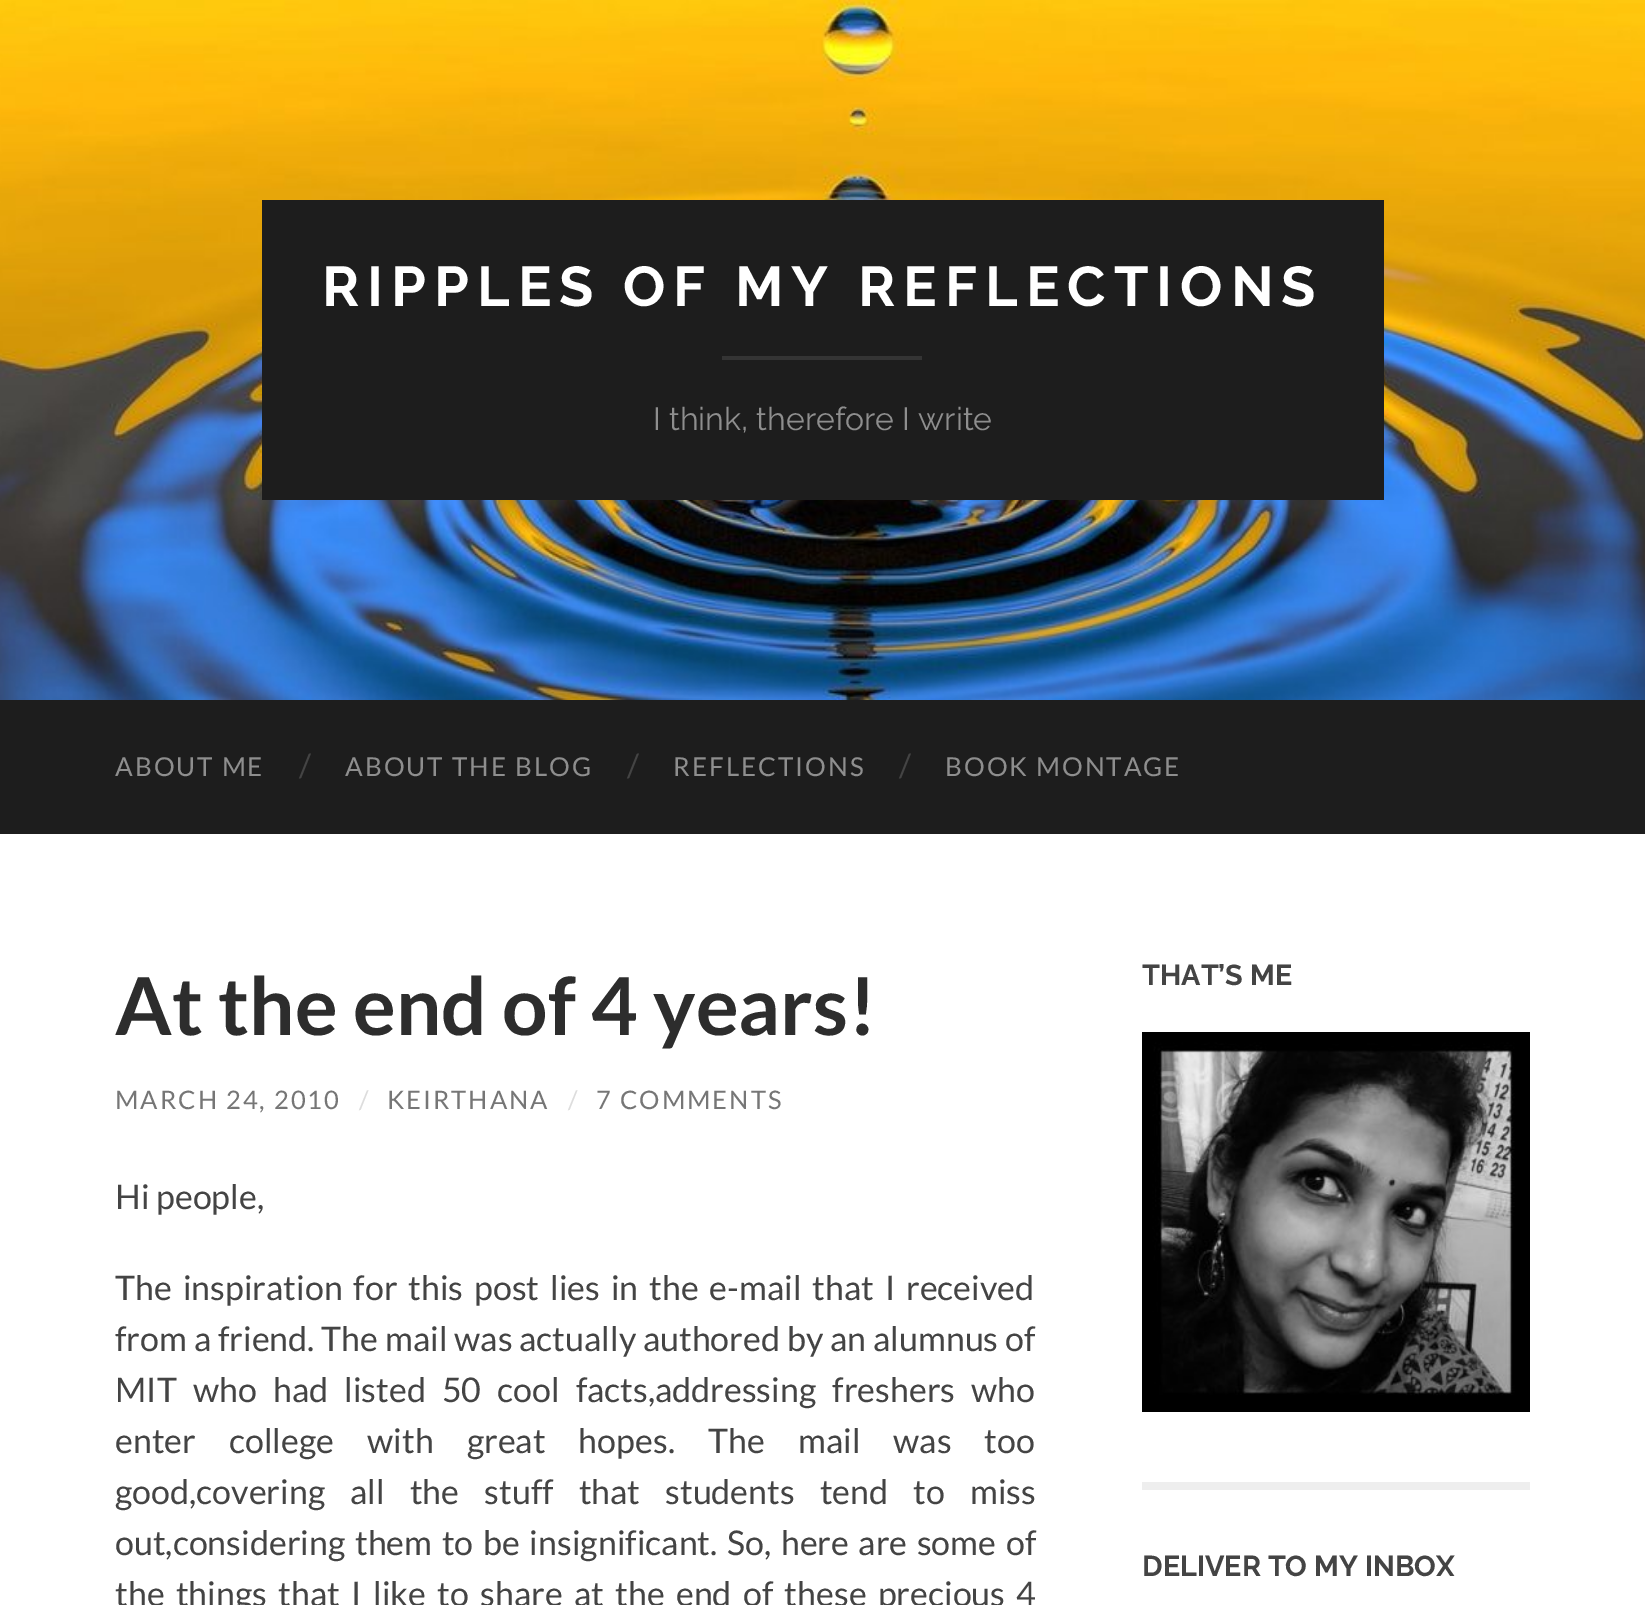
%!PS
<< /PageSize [1645 1605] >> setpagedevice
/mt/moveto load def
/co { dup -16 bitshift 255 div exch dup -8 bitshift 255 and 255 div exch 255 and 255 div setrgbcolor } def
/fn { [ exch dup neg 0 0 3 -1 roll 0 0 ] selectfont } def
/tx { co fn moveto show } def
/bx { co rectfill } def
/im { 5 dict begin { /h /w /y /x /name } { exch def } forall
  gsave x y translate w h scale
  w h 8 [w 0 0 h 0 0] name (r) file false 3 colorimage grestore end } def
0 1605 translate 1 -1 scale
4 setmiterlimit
0 0 1645 1605 16#FFFFFF bx
(media/1.raw) 0 0 1645 700 im
262 200 1122 300 16#1D1D1D bx
722 356 200 4 16#343434 bx
0 700 1645 134 16#1D1D1D bx
1142 1482 388 8 16#EEEEEE bx
(media/2.raw) 1142 1032 388 380 im
/Raleway-Thin 56 fn
16#FFFFFF co
322 306 mt 8 0 (RIPPLES OF MY REFLECTIONS) ashow
(I think, therefore I write) 653 430 /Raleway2-Thin 32 16#8E8E8E tx
/Lato-Regular 26 fn
115 776 mt 2 0 (ABOUT ME) ashow
(/) 299 777 /Lato-Regular 32 16#444444 tx
/Lato-Regular 26 fn
16#8E8E8E co
345 776 mt 2 0 (ABOUT THE BLOG) ashow
(/) 627 777 /Lato-Regular 32 16#444444 tx
/Lato-Regular 26 fn
16#8E8E8E co
673 776 mt 2 0 (REFLECTIONS) ashow
(/) 899 777 /Lato-Regular 32 16#444444 tx
/Lato-Regular 26 fn
16#8E8E8E co
945 776 mt 2 0 (BOOK MONTAGE) ashow
(At the end of 4 years!) 115 1035 /Lato-Bold 80 16#2D2D2D tx
/Lato-Regular 25.5 fn
16#767676 co
115 1109 mt 2 0 (MARCH 24, 2010) ashow
16#DDDDDD co
359 1109 mt 2 0 (/) ashow
16#767676 co
387 1109 mt 2 0 (KEIRTHANA) ashow
16#DDDDDD co
568 1109 mt 2 0 (/) ashow
16#767676 co
596 1109 mt 2 0 (7 COMMENTS) ashow
(Hi people,) 115 1209 /Lato-Regular 34 16#444444 tx
115 1300 mt 4.25 0 32 (The inspiration for this post lies in the e-mail that I received) widthshow
115 1351 mt .25 0 32 (from a friend. The mail was actually authored by an alumnus of) widthshow
115 1402 mt 9.5 0 32 (MIT who had listed 50 cool facts,addressing freshers who) widthshow
115 1453 mt 26.5 0 32 (enter college with great hopes. The mail was too) widthshow
115 1504 mt 18.5 0 32 (good,covering all the stuff that students tend to miss) widthshow
115 1555 mt 3 0 32 (out,considering them to be insignificant. So, here are some of) widthshow
115 1606 mt 4.75 0 32 (the things that I like to share at the end of these precious 4) widthshow
(THAT’S ME) 1142 985 /Raleway-Thin 28.75 16#444444 tx
(DELIVER TO MY INBOX) 1142 1576 /Raleway-Thin 28.75 16#444444 tx
showpage
